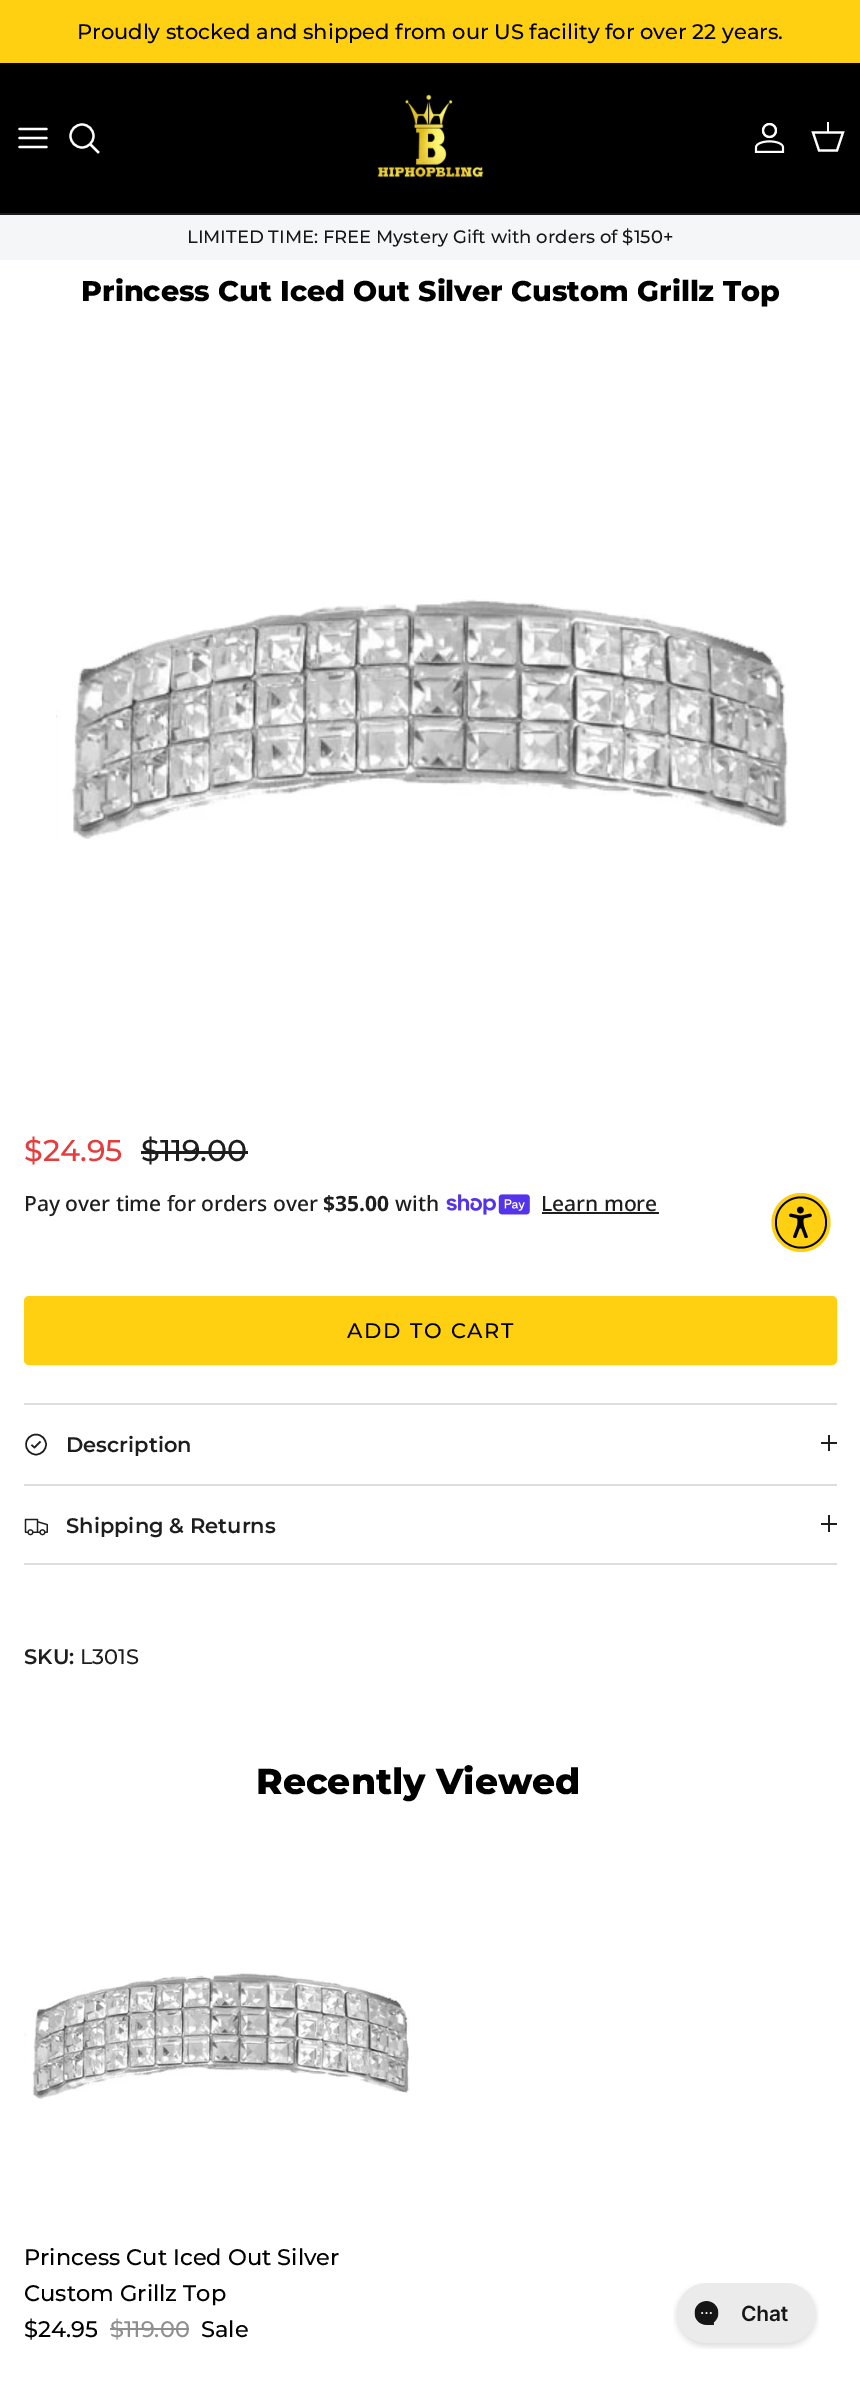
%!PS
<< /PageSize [860 2383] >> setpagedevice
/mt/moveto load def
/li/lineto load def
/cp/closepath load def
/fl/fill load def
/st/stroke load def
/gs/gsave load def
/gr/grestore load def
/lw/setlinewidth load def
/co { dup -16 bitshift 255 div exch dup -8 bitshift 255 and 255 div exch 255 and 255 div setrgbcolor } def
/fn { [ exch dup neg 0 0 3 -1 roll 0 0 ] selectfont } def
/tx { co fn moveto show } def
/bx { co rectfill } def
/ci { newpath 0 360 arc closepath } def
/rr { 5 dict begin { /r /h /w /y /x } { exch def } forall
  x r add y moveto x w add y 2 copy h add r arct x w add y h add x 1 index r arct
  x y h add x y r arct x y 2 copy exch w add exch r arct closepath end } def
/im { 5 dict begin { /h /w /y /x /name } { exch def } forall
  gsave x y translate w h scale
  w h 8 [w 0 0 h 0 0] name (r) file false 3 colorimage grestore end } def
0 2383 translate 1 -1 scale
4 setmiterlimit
0 0 860 2383 16#FFFFFF bx
0 0 860 63 16#FFD012 bx
0 63 860 150 16#000000 bx
0 213 860 2 16#1E1E1E bx
16#FFFFFF co
2.2 lw
1 setlinecap
1 setlinejoin
19.5 138 mt 46.5 138 li 19.5 129 mt 46.5 129 li 19.5 147 mt 46.5 147 li st
0 setlinecap
0 setlinejoin
82 136 11.5 ci st
2 setlinecap
91.5 145.5 mt 98 152 li st
(media/1.raw) 377 94 107 84 im
(media/2.raw) 754 122 31 31 im
0 setlinecap
813 132.5 mt 843 132.5 li 837 150.5 li 819 150.5 li cp st
827 122 2 11 16#FFFFFF bx
0 215 860 45 16#F4F6F8 bx
(media/3.raw) 56 599 732 240 im
141 1151 107 3 16#1E1E1E bx
(media/4.raw) 446 1194 84 21 im
542 1212 117 2 16#1E1E1E bx
16#FFD012 co
25 1297 811 67 4 rr gs fl gr
2 lw
st
24 1403 813 2 16#DDDDDD bx
24 1484 813 2 16#DDDDDD bx
16#1E1E1E co
1.5 lw
36 1444.5 10 ci st
40.5 1441.5 mt 34.5 1447.5 li 31.5 1445 li st
828 1435 2 16 16#1E1E1E bx
821 1442 16 2 16#1E1E1E bx
24 1563 813 2 16#DDDDDD bx
(media/5.raw) 24 1518 24 18 im
828 1515 2 17 16#1E1E1E bx
821 1523 16 2 16#1E1E1E bx
(media/6.raw) 24 1973 386 126 im
110 2328 79 2 16#8F8F8F bx
16#FFD012 co
801 1222.5 29.5 ci fl
16#000000 co
801 1222.5 26 ci fl
16#FFD012 co
801 1222.5 24 ci fl
(media/7.raw) 789 1206 23 32 im
(media/8.raw) 673 2283 146 66 im
(Proudly stocked and shipped from our US facility for over 22 years.) 77 39 /Montserrat-Medium 21 16#000000 tx
(LIMITED TIME: FREE Mystery Gift with orders of $150+) 187 243 /Montserrat-Medium 18 16#171717 tx
(Princess Cut Iced Out Silver Custom Grillz Top) 81 301 /Montserrat-ExtraBold 28.5 16#000000 tx
($24.95) 24 1161 /Montserrat-Medium 30 16#E53D3D tx
($119.00) 141 1161 /Montserrat-Medium 30 16#1E1E1E tx
(Pay over time for orders over) 24 1211 /NotoSans-Medium 21 16#1E1E1E tx
($35.00) 323 1211 /NotoSans-Bold 21 16#1E1E1E tx
(with) 395 1211 /NotoSans-Medium 21 16#1E1E1E tx
(Learn more) 541 1211 /NotoSans-Medium 21 16#1E1E1E tx
/Montserrat-Medium 21 fn
16#000000 co
347 1338 mt 1.75 0 (ADD TO CART) ashow
(Description) 66 1452 /Montserrat-SemiBold 21 16#1E1E1E tx
(Shipping & Returns) 66 1533 /Montserrat-SemiBold 21 16#1E1E1E tx
(SKU:) 24 1664 /Montserrat-SemiBold 21 16#1E1E1E tx
(L301S) 80 1664 /Montserrat-Medium 21 16#1E1E1E tx
(Recently Viewed) 256 1794 /Montserrat-ExtraBold 36 16#000000 tx
(Princess Cut Iced Out Silver) 24 2265 /Montserrat-Medium 22.5 16#000000 tx
(Custom Grillz Top) 24 2301 /Montserrat-Medium 22.5 16#000000 tx
($24.95) 24 2337 /Montserrat-Medium 22.5 16#000000 tx
($119.00) 110 2337 /Montserrat-Medium 22.5 16#8F8F8F tx
(Sale) 201 2337 /Montserrat-Medium 22.5 16#000000 tx
showpage
